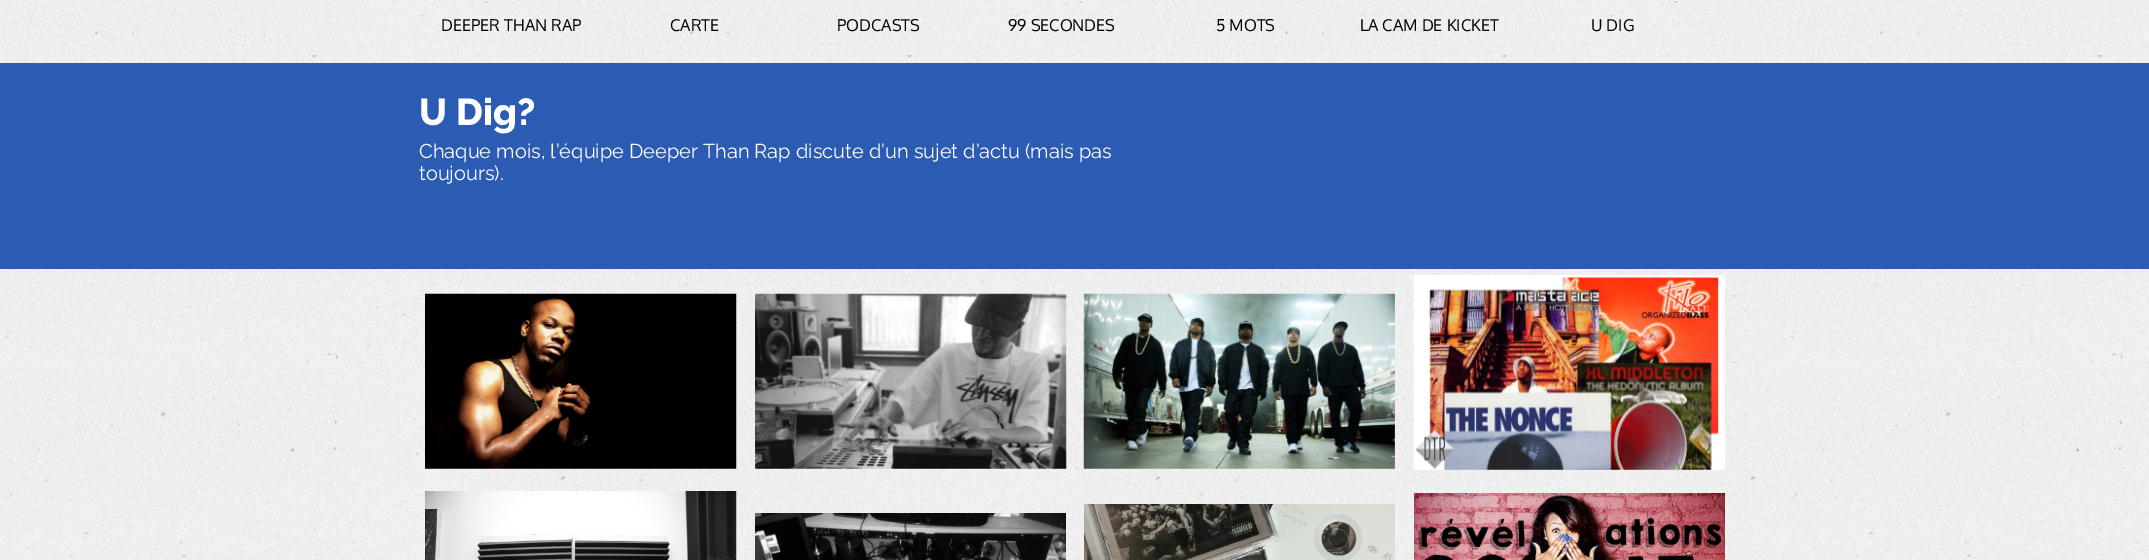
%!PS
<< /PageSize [2149 560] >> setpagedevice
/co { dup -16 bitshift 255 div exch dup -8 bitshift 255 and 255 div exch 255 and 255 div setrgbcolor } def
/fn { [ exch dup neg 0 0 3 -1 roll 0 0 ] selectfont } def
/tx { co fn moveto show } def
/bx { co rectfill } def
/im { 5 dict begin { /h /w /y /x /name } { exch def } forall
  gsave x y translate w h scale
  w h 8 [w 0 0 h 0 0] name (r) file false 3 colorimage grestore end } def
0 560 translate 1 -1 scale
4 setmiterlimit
0 0 2149 560 16#FFFFFF bx
(media/1.raw) 0 0 2149 560 im
0 63 2149 206 16#2C5BB3 bx
(media/2.raw) 425 293 312 176 im
(media/3.raw) 755 293 312 176 im
(media/4.raw) 1083 293 312 176 im
(media/5.raw) 1413 275 312 195 im
(media/6.raw) 425 491 312 69 im
(media/7.raw) 755 513 311 47 im
(media/8.raw) 1084 504 311 56 im
(media/9.raw) 1414 493 311 67 im
(DEEPER THAN RAP) 441 31 /Oxygen-Regular 16.25 16#000000 tx
(CARTE) 670 31 /Oxygen-Regular 16.25 16#000000 tx
(PODCASTS) 837 31 /Oxygen-Regular 16.25 16#000000 tx
(99 SECONDES) 1008 31 /Oxygen-Regular 16.25 16#000000 tx
(5 MOTS) 1216 31 /Oxygen-Regular 16.25 16#000000 tx
(LA CAM DE KICKET) 1360 31 /Oxygen-Regular 16.25 16#000000 tx
(U DIG) 1591 31 /Oxygen-Regular 16.25 16#000000 tx
(U Dig?) 419 125 /Raleway-ExtraBold 37.5 16#FFFFFF tx
(Chaque mois, l’équipe Deeper Than Rap discute d’un sujet d’actu \(mais pas) 419 158 /Raleway-Regular 20 16#FFFFFF tx
(toujours\).) 419 180 /Raleway-Regular 20 16#FFFFFF tx
showpage
